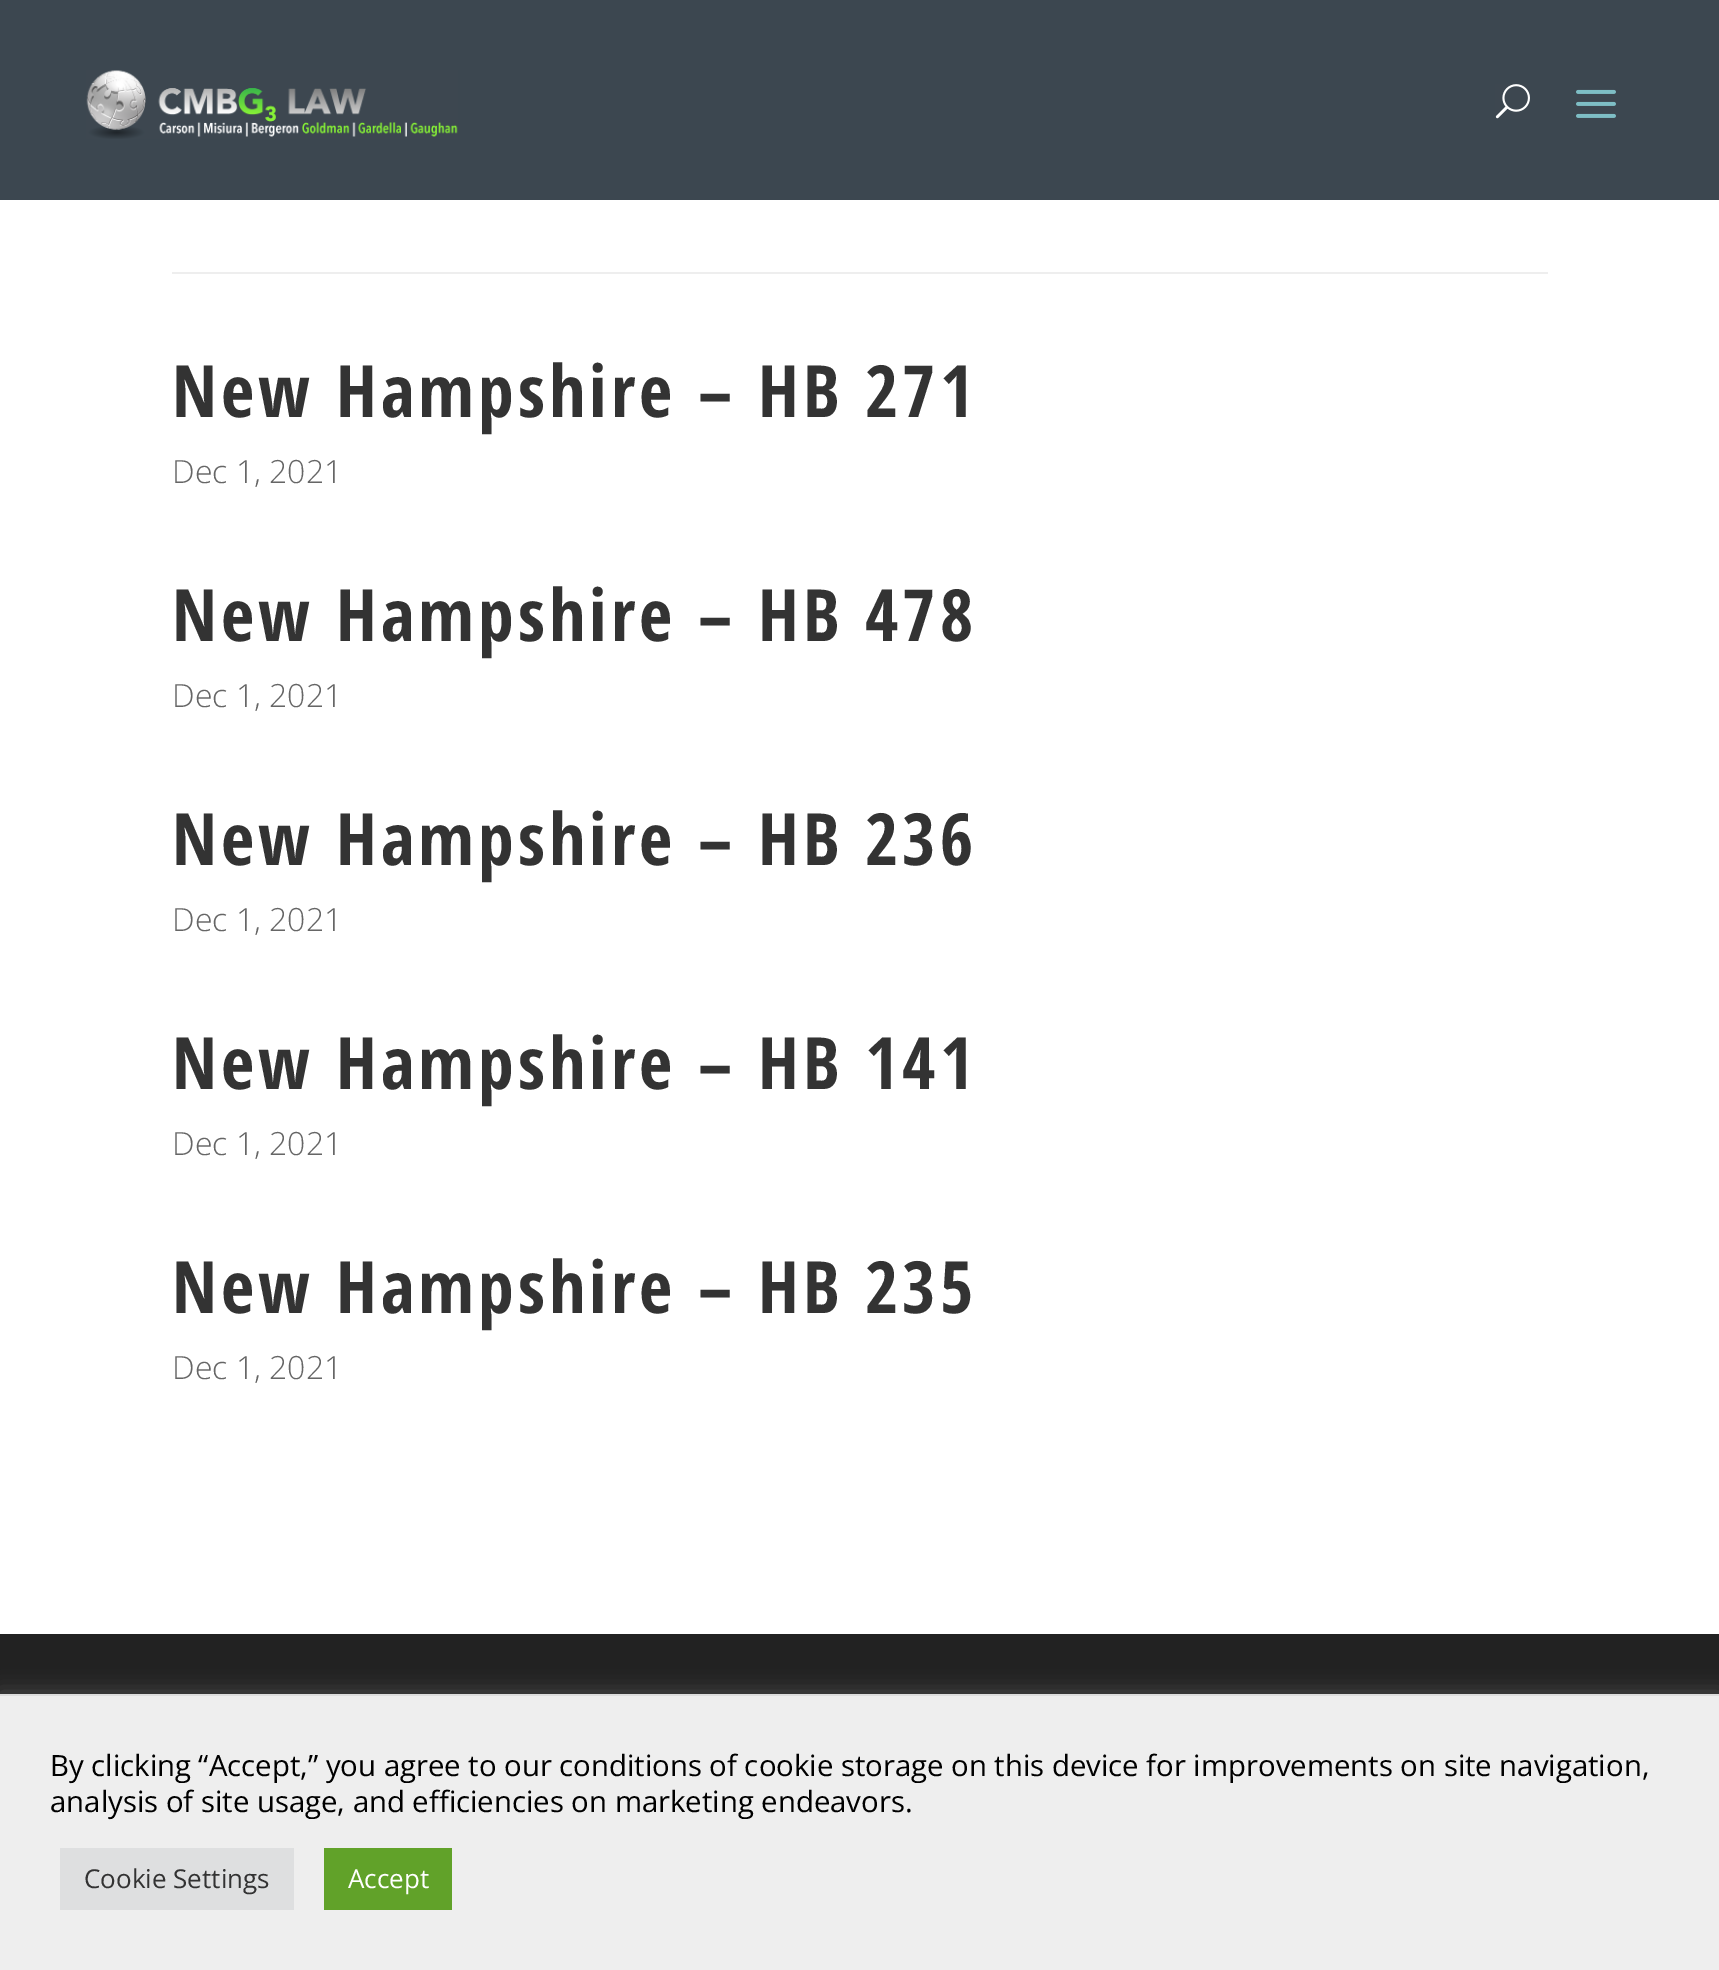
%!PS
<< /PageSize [1719 1970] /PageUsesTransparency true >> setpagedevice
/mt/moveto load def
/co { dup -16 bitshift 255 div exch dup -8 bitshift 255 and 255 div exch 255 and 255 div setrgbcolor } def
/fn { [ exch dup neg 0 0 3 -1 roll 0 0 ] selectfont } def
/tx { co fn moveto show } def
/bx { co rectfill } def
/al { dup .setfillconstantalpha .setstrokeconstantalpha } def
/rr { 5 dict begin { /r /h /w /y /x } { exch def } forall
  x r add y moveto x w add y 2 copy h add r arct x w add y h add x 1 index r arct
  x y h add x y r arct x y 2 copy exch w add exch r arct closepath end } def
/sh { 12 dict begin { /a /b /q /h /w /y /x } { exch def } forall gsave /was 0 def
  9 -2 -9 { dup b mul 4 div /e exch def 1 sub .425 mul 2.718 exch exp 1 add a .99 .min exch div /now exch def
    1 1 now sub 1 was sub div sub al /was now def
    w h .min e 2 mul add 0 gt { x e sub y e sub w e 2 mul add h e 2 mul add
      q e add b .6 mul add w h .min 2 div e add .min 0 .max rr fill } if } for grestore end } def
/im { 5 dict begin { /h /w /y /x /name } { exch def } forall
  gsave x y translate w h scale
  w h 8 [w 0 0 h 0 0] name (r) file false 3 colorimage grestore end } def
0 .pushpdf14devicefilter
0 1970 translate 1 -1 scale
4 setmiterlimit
0 0 1719 1970 16#222222 bx
0 0 1719 1634 16#FFFFFF bx
0.9 al
0 0 1719 200 16#27333D bx
1 al
(media/1.raw) 86 70 372 69 im
(media/2.raw) 1495 84 35 35 im
(media/3.raw) 1576 89 40 29 im
172 272 1376 2 16#EEEEEE bx
16#ACABAB co
0 1692 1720 276 0 10 .3 sh
0 1696 1719 274 16#EEEEEE bx
0 1694 1719 2 16#DDDDDD bx
60 1848 234 62 16#DEDFE0 bx
324 1848 128 62 16#61A229 bx
/OpenSansCondensed-Bold 72 fn
16#333333 co
172 417 mt 4 0 (New Hampshire – HB 271) ashow
(Dec 1, 2021) 172 483 /OpenSans-Light 32 16#666666 tx
/OpenSansCondensed-Bold 72 fn
16#333333 co
172 641 mt 4 0 (New Hampshire – HB 478) ashow
(Dec 1, 2021) 172 707 /OpenSans-Light 32 16#666666 tx
/OpenSansCondensed-Bold 72 fn
16#333333 co
172 865 mt 4 0 (New Hampshire – HB 236) ashow
(Dec 1, 2021) 172 931 /OpenSans-Light 32 16#666666 tx
/OpenSansCondensed-Bold 72 fn
16#333333 co
172 1089 mt 4 0 (New Hampshire – HB 141) ashow
(Dec 1, 2021) 172 1155 /OpenSans-Light 32 16#666666 tx
/OpenSansCondensed-Bold 72 fn
16#333333 co
172 1313 mt 4 0 (New Hampshire – HB 235) ashow
(Dec 1, 2021) 172 1379 /OpenSans-Light 32 16#666666 tx
(By clicking “Accept,” you agree to our conditions of cookie storage on this device for improvements on site navigation,) 50 1776 /OpenSans-Regular 29.33 16#000000 tx
(analysis of site usage, and efficiencies on marketing endeavors.) 50 1812 /OpenSans-Regular 29.33 16#000000 tx
(Cookie Settings) 84 1888 /OpenSans-Regular 26 16#333333 tx
(Accept) 348 1888 /OpenSans-Regular 26 16#FFFFFF tx
.poppdf14devicefilter showpage
